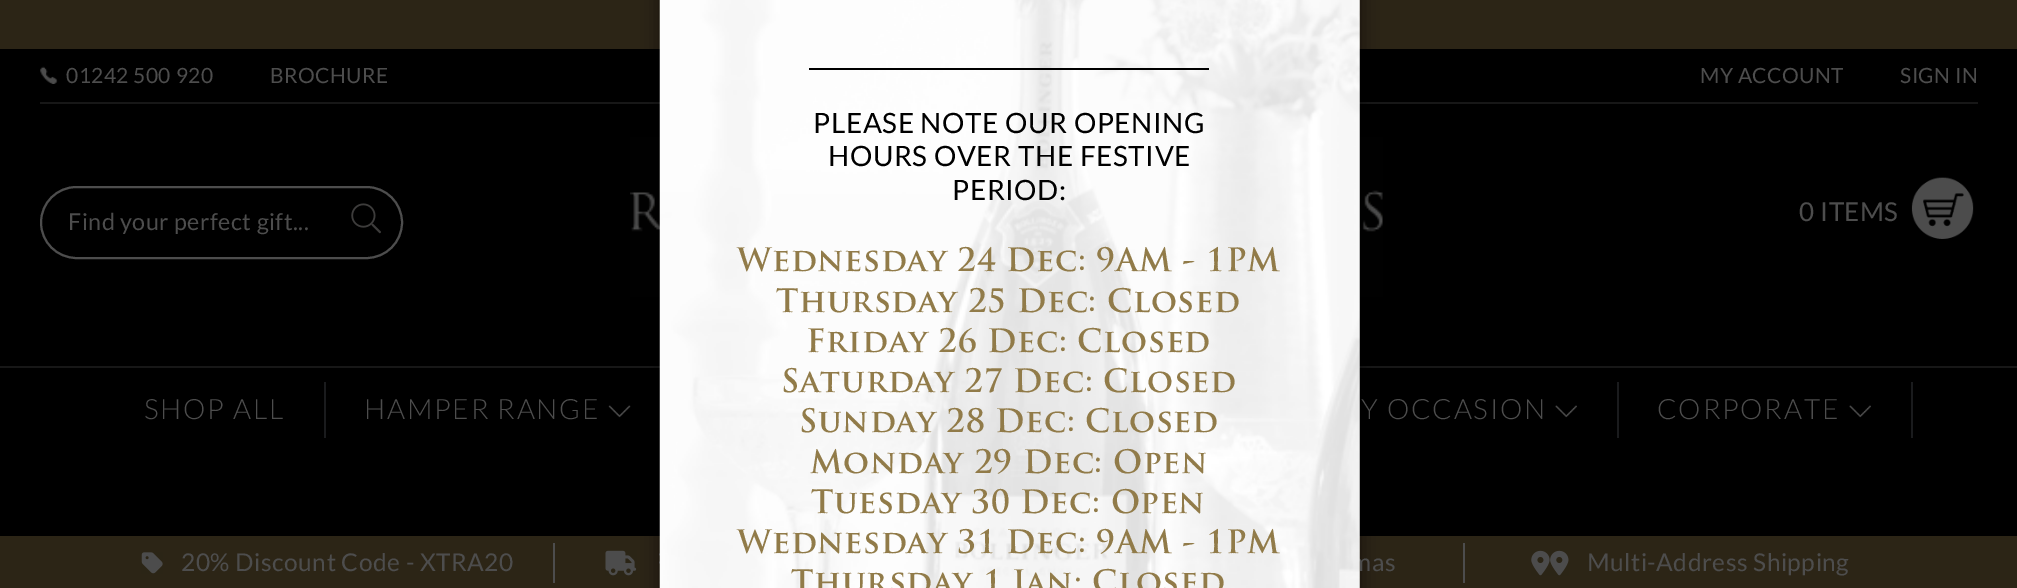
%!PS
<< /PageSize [2017 588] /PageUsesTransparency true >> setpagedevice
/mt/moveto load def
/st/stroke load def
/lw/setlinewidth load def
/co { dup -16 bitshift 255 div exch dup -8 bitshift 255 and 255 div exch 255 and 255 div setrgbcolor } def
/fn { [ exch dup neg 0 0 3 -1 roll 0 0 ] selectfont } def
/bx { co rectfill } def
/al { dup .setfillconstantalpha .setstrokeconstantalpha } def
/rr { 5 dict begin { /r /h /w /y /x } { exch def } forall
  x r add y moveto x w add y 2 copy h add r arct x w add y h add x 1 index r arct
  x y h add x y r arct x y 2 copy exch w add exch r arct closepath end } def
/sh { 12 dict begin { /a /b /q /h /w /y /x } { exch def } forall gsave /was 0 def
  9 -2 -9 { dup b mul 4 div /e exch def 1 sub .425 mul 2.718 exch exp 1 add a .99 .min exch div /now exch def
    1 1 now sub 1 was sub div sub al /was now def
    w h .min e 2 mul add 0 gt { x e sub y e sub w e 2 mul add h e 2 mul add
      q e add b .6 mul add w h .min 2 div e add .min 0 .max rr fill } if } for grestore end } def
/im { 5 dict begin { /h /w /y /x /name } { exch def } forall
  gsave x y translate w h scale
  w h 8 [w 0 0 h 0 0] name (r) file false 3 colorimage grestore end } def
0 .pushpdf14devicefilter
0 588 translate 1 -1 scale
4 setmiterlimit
0 0 2017 588 16#2C2516 bx
0 49 2017 487 16#000000 bx
40 102 1938 2 16#171717 bx
(media/1.raw) 40 66 18 18 im
(media/4.raw) 630 137 753 160 im
0 366 2017 2 16#171717 bx
(media/9.raw) 605 550 32 26 im
16#000000 co
660 -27 700 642 0 9 .5 sh
16#4D4D4D co
2 lw
41 187 361 71 35.5 rr st
(media/3.raw) 351 203 30 31 im
(media/5.raw) 1911 177 63 62 im
324 382 2 56 16#1A1B1D bx
(media/6.raw) 608 405 23 13 im
1617 382 2 56 16#1A1B1D bx
(media/7.raw) 1555 405 22 13 im
1911 382 2 56 16#1A1B1D bx
(media/7.raw) 1849 405 22 13 im
553 543 2 40 16#4D4D4D bx
(media/8.raw) 141 552 22 22 im
1463 543 2 40 16#4D4D4D bx
(media/10.raw) 1531 550 38 26 im
/Lato-Regular 21 fn
66 83 mt .4 0 (01242 500 920) ashow
270 83 mt .4 0 (BROCHURE) ashow
1700 83 mt .4 0 (MY ACCOUNT) ashow
1900 83 mt .4 0 (SIGN IN) ashow
/Lato-Regular 23.25 fn
68 230 mt .5 0 (Find your perfect gift...) ashow
/Lato-Regular 26 fn
1799 221 mt .5 0 (0 ITEMS) ashow
/Lato-Light 28 fn
144 419 mt 1.75 0 (SHOP ALL) ashow
364 419 mt 1.75 0 (HAMPER RANGE) ashow
1361 419 mt 1.75 0 (Y OCCASION) ashow
1657 419 mt 1.75 0 (CORPORATE) ashow
/Lato-Regular 24.5 fn
181 571 mt .5 0 (20% Discount Code - XTRA20) ashow
1351 571 mt .5 0 (mas) ashow
(media/2.raw) 659 0 701 588 im
/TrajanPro-Bold 31.5 fn
16#917B49 co
791 593 mt .6 0 (Thursday 1 Jan: Closed) ashow
737 553 mt .6 0 (Wednesday 31 Dec: 9AM - 1PM) ashow
811 513 mt .6 0 (Tuesday 30 Dec: Open) ashow
810 473 mt .6 0 (Monday 29 Dec: Open) ashow
799 432 mt .6 0 (Sunday 28 Dec: Closed) ashow
781 392 mt .6 0 (Saturday 27 Dec: Closed) ashow
806 352 mt .6 0 (Friday 26 Dec: Closed) ashow
776 312 mt .6 0 (Thursday 25 Dec: Closed) ashow
737 271 mt .6 0 (Wednesday 24 Dec: 9AM - 1PM) ashow
/Lato-Regular 28 fn
16#000000 co
952 200 mt .6 0 (PERIOD:) ashow
828 166 mt .6 0 (HOURS OVER THE FESTIVE) ashow
813 133 mt .6 0 (PLEASE NOTE OUR OPENING) ashow
809 68 400 2 16#000000 bx
/Lato-Regular 24.5 fn
16#4D4D4D co
1587 571 mt .5 0 (Multi-Address Shipping) ashow
.poppdf14devicefilter showpage
